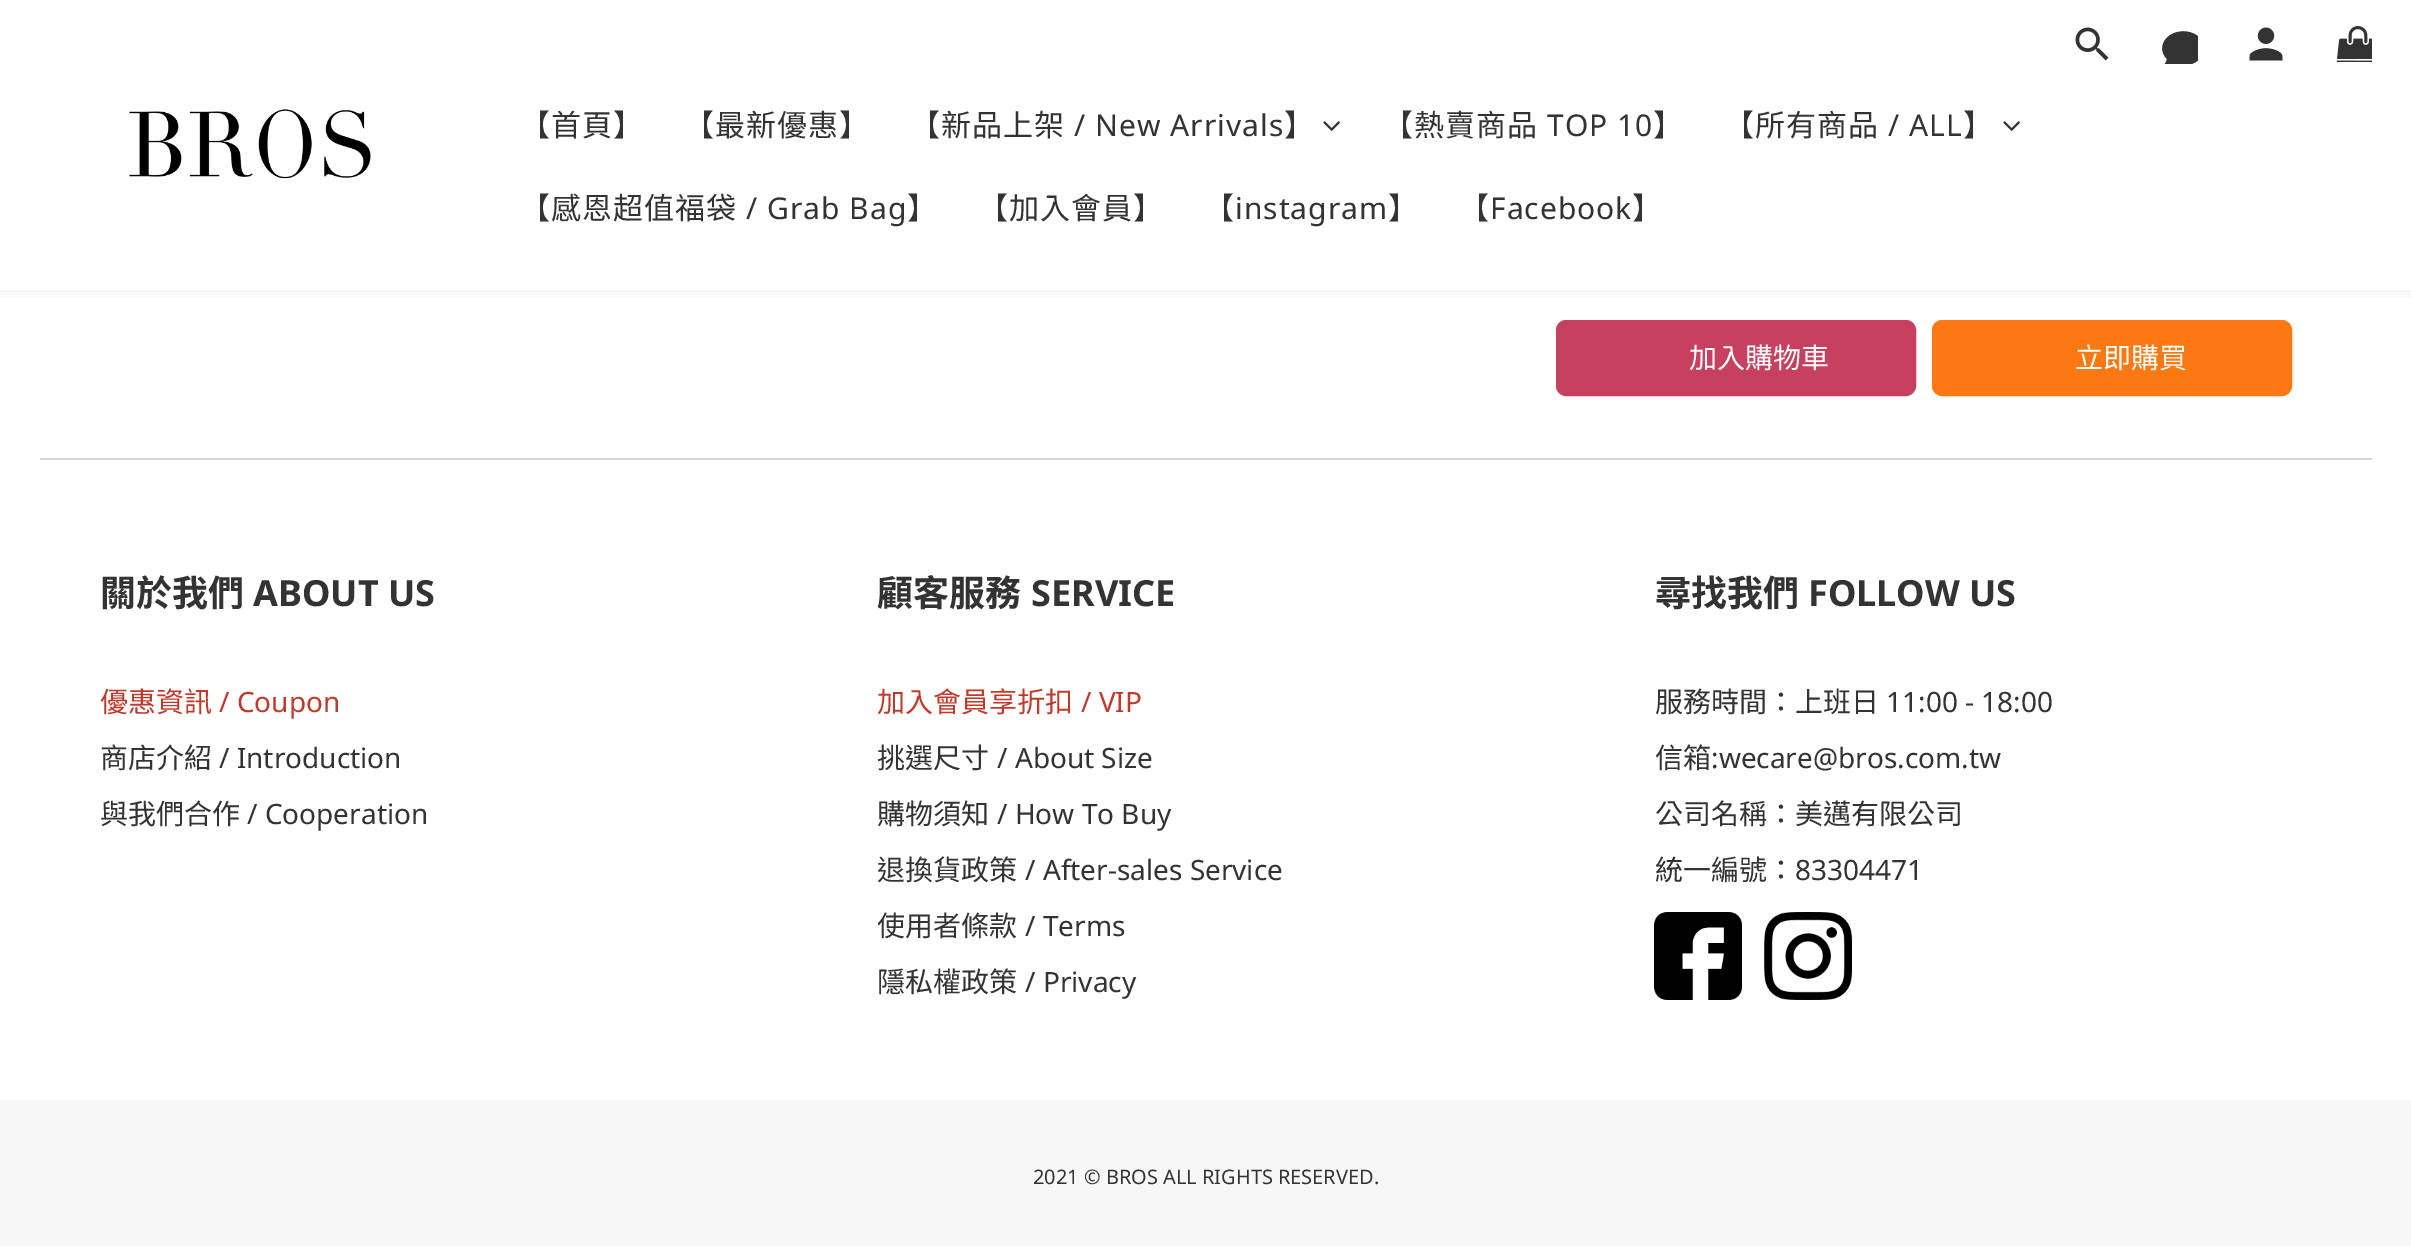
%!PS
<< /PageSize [2411 1246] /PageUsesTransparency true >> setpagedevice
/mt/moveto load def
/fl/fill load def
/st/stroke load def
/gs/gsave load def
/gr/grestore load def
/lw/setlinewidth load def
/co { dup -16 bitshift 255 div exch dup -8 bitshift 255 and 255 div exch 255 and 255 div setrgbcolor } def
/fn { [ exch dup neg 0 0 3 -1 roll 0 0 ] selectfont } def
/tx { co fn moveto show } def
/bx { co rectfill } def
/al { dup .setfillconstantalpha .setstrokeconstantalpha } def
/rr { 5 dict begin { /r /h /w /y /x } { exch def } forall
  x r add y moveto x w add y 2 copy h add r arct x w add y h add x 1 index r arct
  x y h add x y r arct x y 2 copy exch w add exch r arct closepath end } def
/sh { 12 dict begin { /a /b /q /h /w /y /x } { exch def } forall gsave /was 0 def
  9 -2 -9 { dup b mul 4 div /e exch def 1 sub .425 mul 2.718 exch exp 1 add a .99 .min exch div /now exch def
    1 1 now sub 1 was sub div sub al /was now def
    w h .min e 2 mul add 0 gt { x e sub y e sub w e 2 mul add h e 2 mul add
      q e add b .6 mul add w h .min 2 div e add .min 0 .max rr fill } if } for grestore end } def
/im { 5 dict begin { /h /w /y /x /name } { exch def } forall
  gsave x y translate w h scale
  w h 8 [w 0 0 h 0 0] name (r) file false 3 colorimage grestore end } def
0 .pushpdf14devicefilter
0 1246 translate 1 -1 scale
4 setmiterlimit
0 0 2411 1246 16#FFFFFF bx
gs
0 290 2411 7 rectclip
16#000000 co
0 4 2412 290 0 6 .06 sh
gr
(media/1.raw) 2075 27 34 34 im
(media/2.raw) 2162 31 36 33 im
(media/3.raw) 2249 27 34 34 im
(media/4.raw) 2336 26 36 36 im
(media/5.raw) 129 109 242 70 im
(media/6.raw) 1323 121 17 10 im
(media/6.raw) 2003 121 17 10 im
16#C74060 co
1557 321 358 74 9 rr gs fl gr
2 lw
st
16#FB7813 co
1933 321 358 74 9 rr gs fl gr
st
40 458 2332 2 16#D6D6D6 bx
(media/7.raw) 1654 912 88 88 im
(media/8.raw) 1764 912 88 88 im
0 1100 2411 146 16#F7F7F7 bx
/NotoSansTC-Regular 30 fn
16#333333 co
520 136 mt 1 0 (【首頁】) ashow
684 136 mt 1 0 (【最新優惠】) ashow
910 136 mt 1 0 (【新品上架) ashow
/NotoSans-Regular 30 fn
1074 136 mt 1 0 (/ New Arrivals) ashow
/NotoSansTC-Regular 30 fn
1284 136 mt 1 0 (】) ashow
1383 136 mt 1 0 (【熱賣商品) ashow
/NotoSans-Regular 30 fn
1547 136 mt 1 0 (TOP 10) ashow
/NotoSansTC-Regular 30 fn
1653 136 mt 1 0 (】) ashow
1724 136 mt 1 0 (【所有商品) ashow
/NotoSans-Regular 30 fn
1888 136 mt 1 0 (/ ALL) ashow
/NotoSansTC-Regular 30 fn
1963 136 mt 1 0 (】) ashow
520 219 mt 1 0 (【感恩超值福袋) ashow
/NotoSans-Regular 30 fn
746 219 mt 1 0 (/ Grab Bag) ashow
/NotoSansTC-Regular 30 fn
907 219 mt 1 0 (】) ashow
978 219 mt 1 0 (【加入會員】) ashow
1204 219 mt 1 0 (【) ashow
/NotoSans-Regular 30 fn
1235 219 mt 1 0 (instagram) ashow
/NotoSansTC-Regular 30 fn
1388 219 mt 1 0 (】) ashow
1459 219 mt 1 0 (【) ashow
/NotoSans-Regular 30 fn
1490 219 mt 1 0 (Facebook) ashow
/NotoSansTC-Regular 30 fn
1632 219 mt 1 0 (】) ashow
(加入購物車) 1689 368 /NotoSansTC-Regular 28 16#FFFFFF tx
(立即購買) 2075 368 /NotoSansTC-Regular 28 16#FFFFFF tx
(關於我們) 100 606 /NotoSansTC-Bold 36 16#333333 tx
(ABOUT US) 253 606 /NotoSans-Bold 36 16#333333 tx
(優惠資訊) 100 712 /NotoSansTC-Regular 28 16#C0392B tx
(/ Coupon) 219 712 /NotoSans-Regular 28 16#C0392B tx
(商店介紹) 100 768 /NotoSansTC-Regular 28 16#333333 tx
(/ Introduction) 219 768 /NotoSans-Regular 28 16#333333 tx
(與我們合作) 100 824 /NotoSansTC-Regular 28 16#333333 tx
(/ Cooperation) 247 824 /NotoSans-Regular 28 16#333333 tx
(顧客服務) 877 606 /NotoSansTC-Bold 36 16#333333 tx
(SERVICE) 1031 606 /NotoSans-Bold 36 16#333333 tx
(加入會員享折扣) 877 712 /NotoSansTC-Regular 28 16#C0392B tx
(/ VIP) 1081 712 /NotoSans-Regular 28 16#C0392B tx
(挑選尺寸) 877 768 /NotoSansTC-Regular 28 16#333333 tx
(/ About Size) 997 768 /NotoSans-Regular 28 16#333333 tx
(購物須知) 877 824 /NotoSansTC-Regular 28 16#333333 tx
(/ How To Buy) 997 824 /NotoSans-Regular 28 16#333333 tx
(退換貨政策) 877 880 /NotoSansTC-Regular 28 16#333333 tx
(/ After-sales Service) 1025 880 /NotoSans-Regular 28 16#333333 tx
(使用者條款) 877 936 /NotoSansTC-Regular 28 16#333333 tx
(/ Terms) 1025 936 /NotoSans-Regular 28 16#333333 tx
(隱私權政策) 877 992 /NotoSansTC-Regular 28 16#333333 tx
(/ Privacy) 1025 992 /NotoSans-Regular 28 16#333333 tx
(尋找我們) 1655 606 /NotoSansTC-Bold 36 16#333333 tx
(FOLLOW US) 1808 606 /NotoSans-Bold 36 16#333333 tx
(服務時間：上班日) 1655 712 /NotoSansTC-Regular 28 16#333333 tx
(11:00 - 18:00) 1886 712 /NotoSans-Regular 28 16#333333 tx
(信箱) 1655 768 /NotoSansTC-Regular 28 16#333333 tx
(:wecare@bros.com.tw) 1711 768 /NotoSans-Regular 28 16#333333 tx
(公司名稱：美邁有限公司) 1655 824 /NotoSansTC-Regular 28 16#333333 tx
(統一編號：) 1655 880 /NotoSansTC-Regular 28 16#333333 tx
(83304471) 1795 880 /NotoSans-Regular 28 16#333333 tx
(2021 © BROS ALL RIGHTS RESERVED.) 1033 1184 /NotoSans-Regular 20 16#333333 tx
.poppdf14devicefilter showpage
